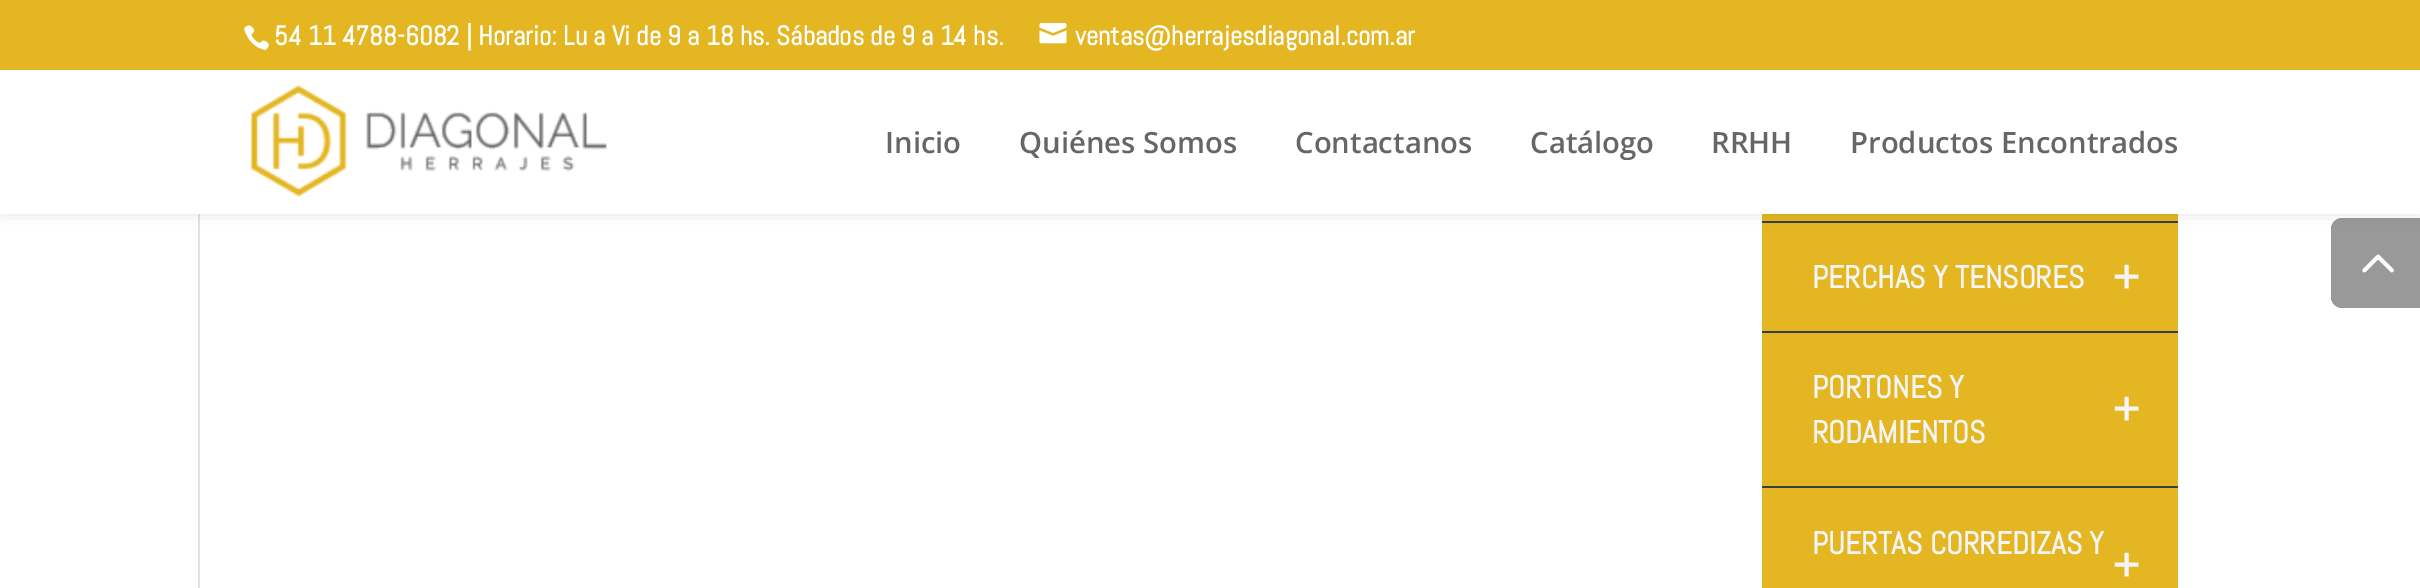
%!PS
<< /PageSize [2420 588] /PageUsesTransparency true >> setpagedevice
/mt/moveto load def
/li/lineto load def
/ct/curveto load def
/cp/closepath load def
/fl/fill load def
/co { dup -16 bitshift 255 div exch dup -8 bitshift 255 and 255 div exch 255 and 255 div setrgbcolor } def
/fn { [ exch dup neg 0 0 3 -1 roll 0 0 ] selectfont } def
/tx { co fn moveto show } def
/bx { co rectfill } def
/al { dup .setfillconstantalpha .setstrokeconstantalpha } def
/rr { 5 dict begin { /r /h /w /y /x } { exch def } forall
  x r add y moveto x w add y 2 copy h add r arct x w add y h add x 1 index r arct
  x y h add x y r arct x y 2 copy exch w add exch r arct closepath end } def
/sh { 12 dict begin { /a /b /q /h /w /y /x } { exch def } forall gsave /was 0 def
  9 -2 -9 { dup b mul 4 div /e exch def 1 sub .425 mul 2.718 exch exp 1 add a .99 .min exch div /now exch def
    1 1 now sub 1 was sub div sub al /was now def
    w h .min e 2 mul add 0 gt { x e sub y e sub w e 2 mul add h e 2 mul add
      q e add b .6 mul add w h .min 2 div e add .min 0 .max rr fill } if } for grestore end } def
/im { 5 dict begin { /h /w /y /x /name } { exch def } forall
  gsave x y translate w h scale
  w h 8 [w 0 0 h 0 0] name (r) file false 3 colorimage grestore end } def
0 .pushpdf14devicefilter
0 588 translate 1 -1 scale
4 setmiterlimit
0 0 2420 588 16#FFFFFF bx
198 214 2 374 16#E2E2E2 bx
1762 214 416 7 16#E4B622 bx
1762 221 416 2 16#383F4A bx
1762 223 416 108 16#E4B622 bx
16#000000 co
0 70 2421 144 0 8 .1 sh
0 0 2420 70 16#E4B622 bx
(media/1.raw) 244 25 25 26 im
(media/2.raw) 1039 23 28 21 im
0 70 2420 144 16#FFFFFF bx
(media/3.raw) 250 85 357 112 im
1762 331 416 2 16#383F4A bx
1762 333 416 153 16#E4B622 bx
1762 486 416 2 16#383F4A bx
1762 488 416 100 16#E4B622 bx
0.4 al
16#000000 co
2342 218 mt 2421 218 li 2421 308 li 2342 308 li 2336 308 2331 303 2331 297 ct 2331 229 li 2331 223 2336 218 2342 218 ct cp fl
1 al
(media/4.raw) 2362 254 32 19 im
(54 11 4788-6082 | Horario: Lu a Vi de 9 a 18 hs. Sábados de 9 a 14 hs.) 274 45 /Abel-Bold 27 16#FFFFFF tx
(ventas@herrajesdiagonal.com.ar) 1075 45 /Abel-Bold 27 16#FFFFFF tx
(Inicio) 885 153 /OpenSans-SemiBold 29.25 16#666666 tx
(Quiénes Somos) 1019 153 /OpenSans-SemiBold 29.25 16#666666 tx
(Contactanos) 1295 153 /OpenSans-SemiBold 29.25 16#666666 tx
(Catálogo) 1530 153 /OpenSans-SemiBold 29.25 16#666666 tx
(RRHH) 1711 153 /OpenSans-SemiBold 29.25 16#666666 tx
(Productos Encontrados) 1850 153 /OpenSans-SemiBold 29.25 16#666666 tx
(PERCHAS Y TENSORES) 1812 288 /Abel-Bold 31.5 16#F5F5F5 tx
(+) 2113 293 /Abel-Bold 45 16#F5F5F5 tx
(PORTONES Y) 1812 398 /Abel-Bold 31.5 16#F5F5F5 tx
(+) 2113 425 /Abel-Bold 45 16#F5F5F5 tx
(RODAMIENTOS) 1812 443 /Abel-Bold 31.5 16#F5F5F5 tx
(PUERTAS CORREDIZAS Y) 1812 554 /Abel-Bold 31.5 16#F5F5F5 tx
(+) 2113 581 /Abel-Bold 45 16#F5F5F5 tx
.poppdf14devicefilter showpage
